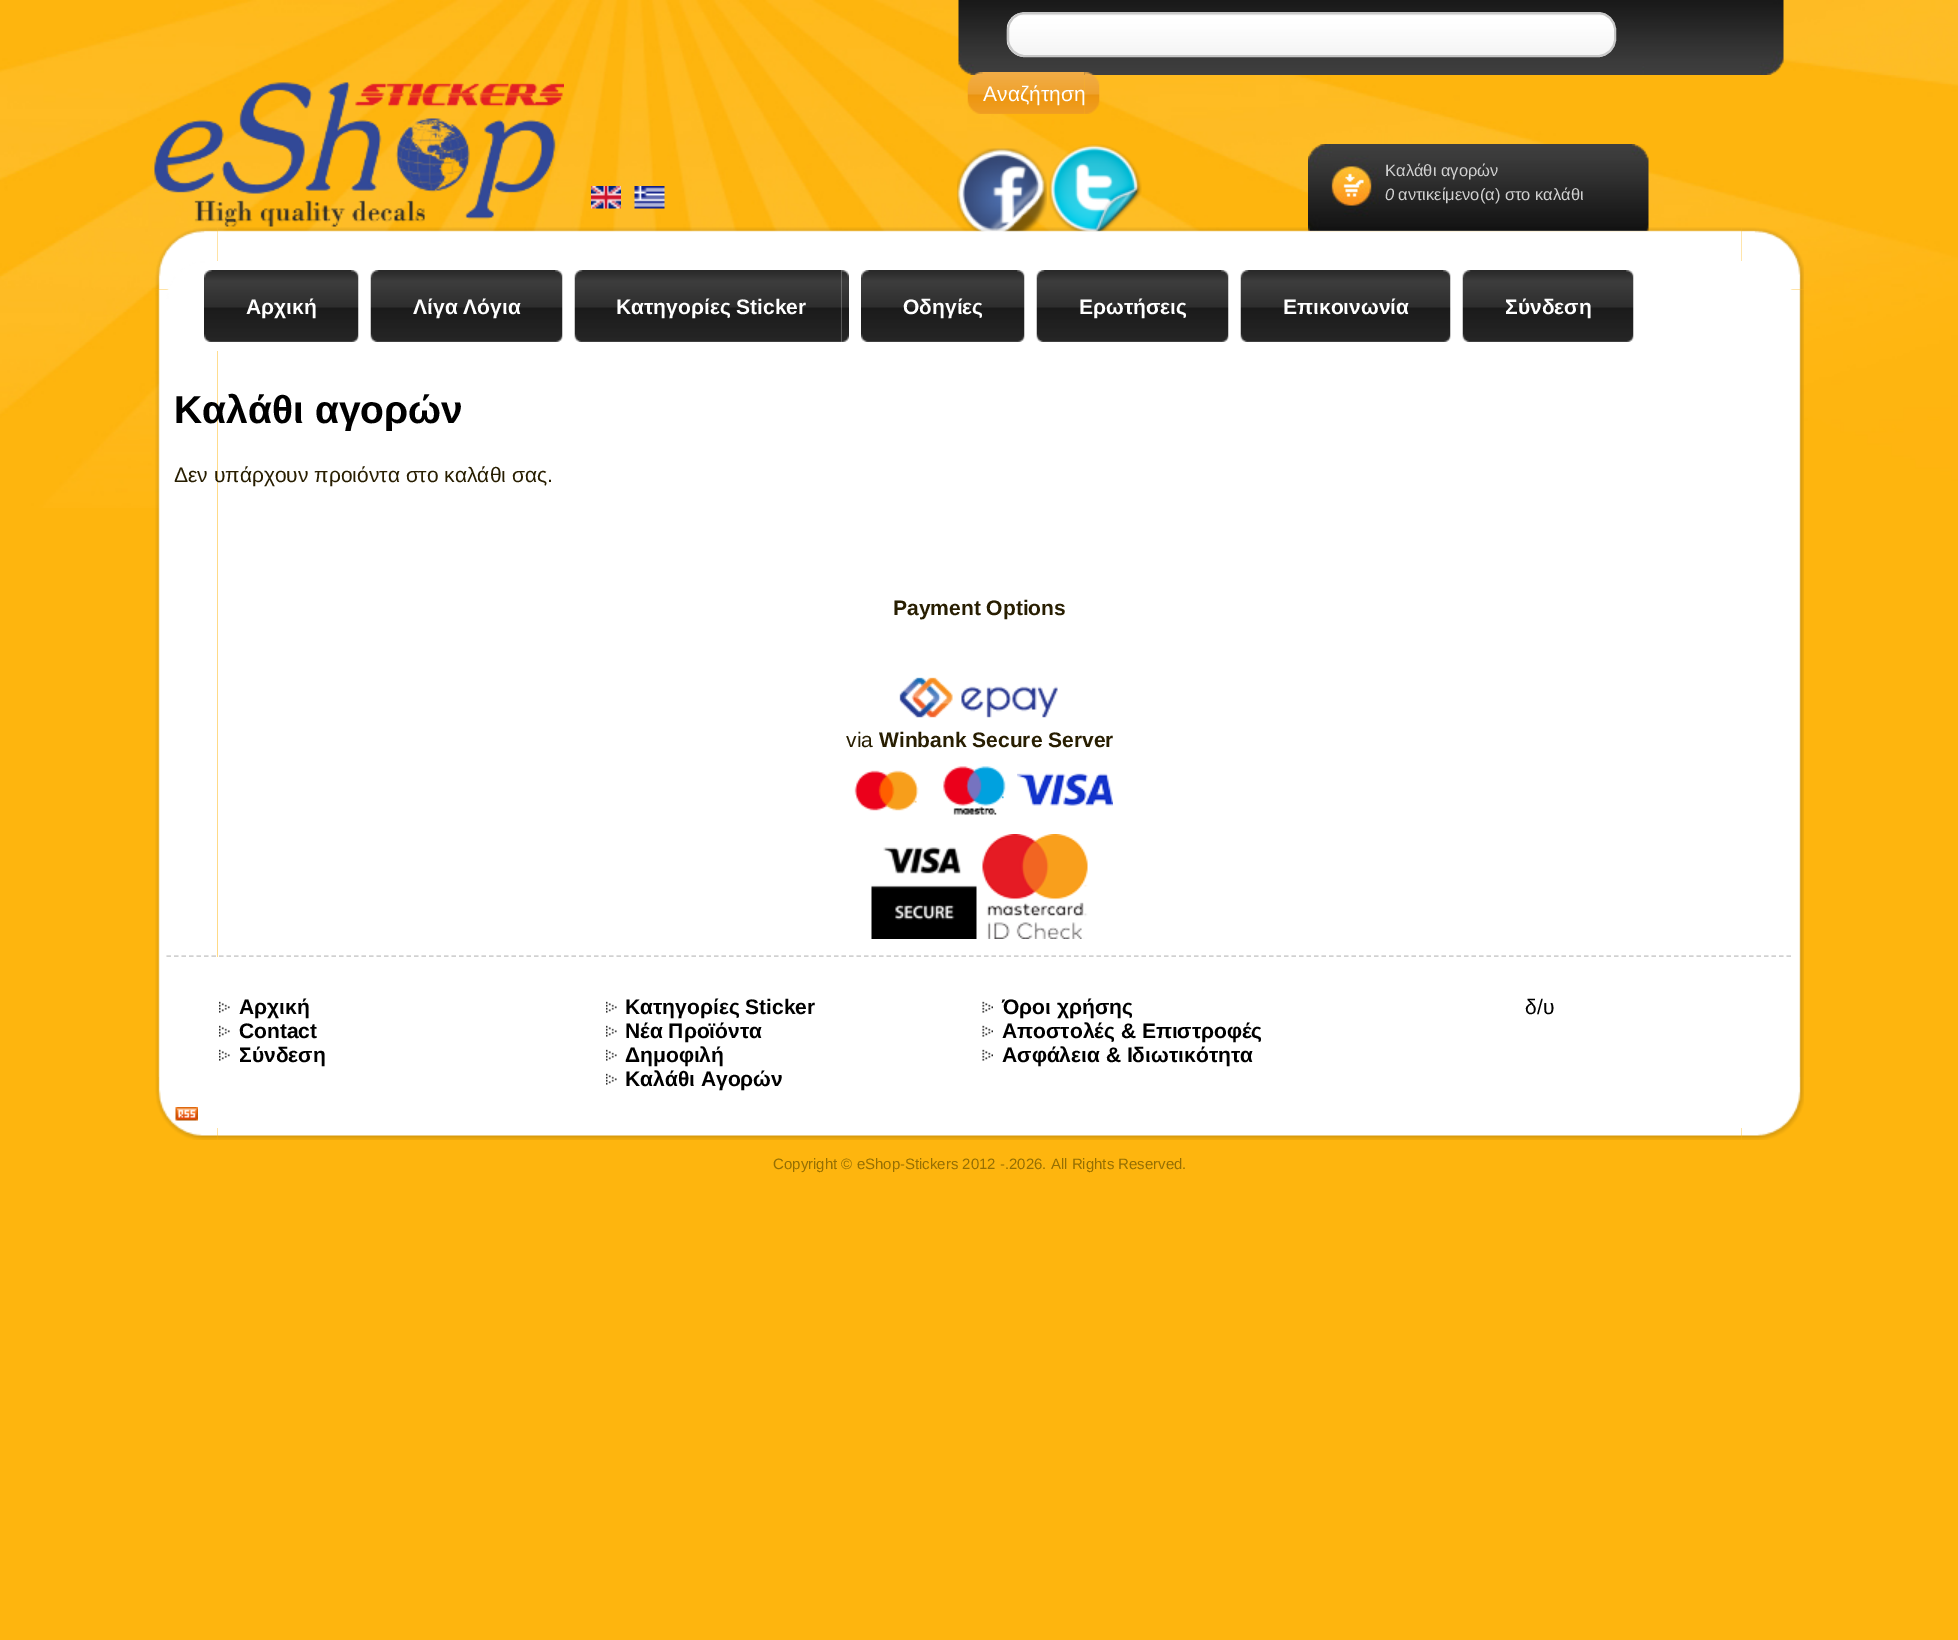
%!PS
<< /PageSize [1958 1640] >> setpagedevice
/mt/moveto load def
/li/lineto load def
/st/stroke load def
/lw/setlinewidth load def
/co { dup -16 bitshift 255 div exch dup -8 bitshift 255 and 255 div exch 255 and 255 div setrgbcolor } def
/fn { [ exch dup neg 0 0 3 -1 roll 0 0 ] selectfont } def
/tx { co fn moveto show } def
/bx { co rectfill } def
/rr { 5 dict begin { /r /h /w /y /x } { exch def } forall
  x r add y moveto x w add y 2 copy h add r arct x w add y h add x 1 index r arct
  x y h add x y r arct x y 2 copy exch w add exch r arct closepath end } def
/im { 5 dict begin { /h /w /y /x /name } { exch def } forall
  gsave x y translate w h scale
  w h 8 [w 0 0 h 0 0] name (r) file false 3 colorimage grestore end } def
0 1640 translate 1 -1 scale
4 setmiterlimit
0 0 1958 1640 16#FEB50E bx
(media/1.raw) 0 0 1958 508 im
(media/2.raw) 154 82 410 145 im
(media/3.raw) 958 0 826 75 im
(media/4.raw) 1006 13 610 44 im
16#C8C8C8 co
2 lw
1008 13 607 43 17 rr st
(media/5.raw) 967 72 118 42 im
(media/6.raw) 1084 72 16 42 im
(media/7.raw) 591 186 30 23 im
(media/8.raw) 634 186 31 23 im
(media/9.raw) 957 148 90 84 im
(media/10.raw) 1049 144 93 88 im
(media/11.raw) 1308 144 341 87 im
(media/12.raw) 155 227 63 63 im
(media/14.raw) 1741 227 63 63 im
(media/13.raw) 217 227 1525 34 im
(media/15.raw) 155 289 63 788 im
(media/16.raw) 1742 289 62 788 im
(media/17.raw) 166 261 1589 90 im
(media/18.raw) 1755 289 38 1 im
(media/19.raw) 204 270 147 72 im
(media/20.raw) 351 270 8 72 im
(media/21.raw) 370 270 185 72 im
(media/20.raw) 555 270 8 72 im
(media/22.raw) 574 270 268 72 im
(media/23.raw) 841 270 8 72 im
(media/24.raw) 861 270 156 72 im
(media/20.raw) 1017 270 8 72 im
(media/25.raw) 1036 270 185 72 im
(media/20.raw) 1221 270 8 72 im
(media/26.raw) 1240 270 203 72 im
(media/20.raw) 1443 270 8 72 im
(media/27.raw) 1462 270 164 72 im
(media/20.raw) 1626 270 8 72 im
218 351 1524 606 16#FFFFFF bx
(media/28.raw) 899 677 159 41 im
(media/29.raw) 854 770 65 41 im
(media/30.raw) 943 766 63 49 im
(media/31.raw) 1017 773 96 33 im
(media/32.raw) 871 847 106 92 im
(media/33.raw) 982 834 106 105 im
16#D1D1D1 co
1.5 lw
[4.5 3] 0 setdash
166.5 956 mt 1792.5 956 li st
(media/37.raw) 155 1077 63 63 im
(media/39.raw) 1741 1077 63 63 im
217 957 1525 171 16#FFFFFF bx
(media/34.raw) 219 1001 11 12 im
(media/34.raw) 219 1025 11 12 im
(media/34.raw) 219 1049 11 12 im
(media/34.raw) 606 1001 11 12 im
(media/34.raw) 606 1025 11 12 im
(media/34.raw) 606 1049 11 12 im
(media/34.raw) 606 1073 11 12 im
(media/35.raw) 982 1001 11 12 im
(media/35.raw) 982 1025 11 12 im
(media/35.raw) 982 1049 11 12 im
(media/36.raw) 175 1107 23 14 im
(media/38.raw) 217 1128 1525 12 im
(Αναζήτηση) 983 101 /LiberationSans-Regular 21 16#FFFFFF tx
(Καλάθι αγορών) 1385 176 /LiberationSans-Regular 16.5 16#D0D0D0 tx
(0) 1385 200 /LiberationSans-Italic 16.5 16#D0D0D0 tx
(αντικείμενο\(α\) στο καλάθι) 1398 200 /LiberationSans-Regular 16.5 16#D0D0D0 tx
(Αρχική) 246 314 /LiberationSans-Bold 21 16#FFFFFF tx
(Λίγα Λόγια) 413 314 /LiberationSans-Bold 21 16#FFFFFF tx
(Κατηγορίες Sticker) 616 314 /LiberationSans-Bold 21 16#FFFFFF tx
(Οδηγίες) 903 314 /LiberationSans-Bold 21 16#FFFFFF tx
(Ερωτήσεις) 1079 314 /LiberationSans-Bold 21 16#FFFFFF tx
(Επικοινωνία) 1283 314 /LiberationSans-Bold 21 16#FFFFFF tx
(Σύνδεση) 1505 314 /LiberationSans-Bold 21 16#FFFFFF tx
(Καλάθι αγορών) 174 423 /LiberationSans-Bold 39 16#000000 tx
(Δεν υπάρχουν προιόντα στο καλάθι σας.) 174 482 /LiberationSans-Regular 21 16#281E01 tx
(Payment Options) 893 615 /LiberationSans-Bold 21 16#281E01 tx
(via) 846 747 /LiberationSans-Regular 21 16#281E01 tx
(Winbank Secure Server) 879 747 /LiberationSans-Bold 21 16#281E01 tx
(Αρχική) 239 1014 /LiberationSans-Bold 21 16#000000 tx
(Contact) 239 1038 /LiberationSans-Bold 21 16#000000 tx
(Σύνδεση) 239 1062 /LiberationSans-Bold 21 16#000000 tx
(Κατηγορίες Sticker) 625 1014 /LiberationSans-Bold 21 16#000000 tx
(Νέα Προϊόντα) 625 1038 /LiberationSans-Bold 21 16#000000 tx
(Δημοφιλή) 625 1062 /LiberationSans-Bold 21 16#000000 tx
(Καλάθι Αγορών) 625 1086 /LiberationSans-Bold 21 16#000000 tx
(Όροι χρήσης) 1002 1014 /LiberationSans-Bold 21 16#000000 tx
(Αποστολές & Επιστροφές) 1002 1038 /LiberationSans-Bold 21 16#000000 tx
(Ασφάλεια & Ιδιωτικότητα) 1002 1062 /LiberationSans-Bold 21 16#000000 tx
(δ/υ) 1525 1014 /LiberationSans-Regular 21 16#000000 tx
(Copyright © eShop-Stickers 2012 -.2026. All Rights Reserved.) 773 1169 /LiberationSans-Regular 15 16#966F03 tx
showpage
